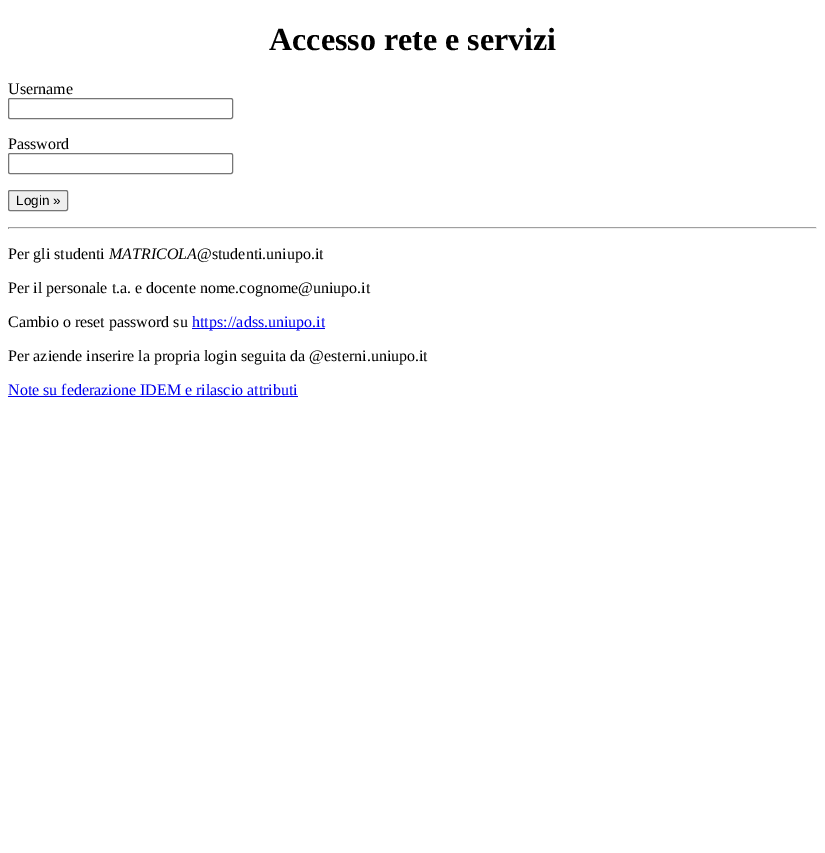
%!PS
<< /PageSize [825 853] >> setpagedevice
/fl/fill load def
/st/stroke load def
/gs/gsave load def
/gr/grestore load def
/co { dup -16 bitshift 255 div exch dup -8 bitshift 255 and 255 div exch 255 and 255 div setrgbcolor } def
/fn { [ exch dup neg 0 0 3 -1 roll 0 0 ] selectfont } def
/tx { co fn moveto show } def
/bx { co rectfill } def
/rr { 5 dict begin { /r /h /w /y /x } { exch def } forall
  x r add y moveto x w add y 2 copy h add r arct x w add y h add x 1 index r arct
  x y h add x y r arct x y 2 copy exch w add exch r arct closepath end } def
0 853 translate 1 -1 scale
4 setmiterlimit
0 0 825 853 16#FFFFFF bx
16#767676 co
8.5 98.5 224 20 1.5 rr st
8.5 153.5 224 20 1.5 rr st
16#EFEFEF co
8.5 190.5 59 20 1.5 rr gs fl gr
16#767676 co
st
8 227 809 1 16#9F9F9F bx
816 227 1 2 16#EEEEEE bx
8 228 809 1 16#EEEEEE bx
8 227 1 2 16#9F9F9F bx
192 328 133 1 16#0000EE bx
8 396 290 1 16#0000EE bx
(Accesso rete e servizi) 269 50 /LiberationSerif-Bold 32 16#000000 tx
(Username) 8 94 /LiberationSerif-Regular 16 16#000000 tx
(Password) 8 149 /LiberationSerif-Regular 16 16#000000 tx
(Login ») 16 205 /LiberationSans-Regular 13.5 16#000000 tx
(Per gli studenti) 8 259 /LiberationSerif-Regular 16 16#000000 tx
(MATRICOLA) 109 259 /LiberationSerif-Italic 16 16#000000 tx
(@studenti.uniupo.it) 197 259 /LiberationSerif-Regular 16 16#000000 tx
(Per il personale t.a. e docente nome.cognome@uniupo.it) 8 293 /LiberationSerif-Regular 16 16#000000 tx
(Cambio o reset password su) 8 327 /LiberationSerif-Regular 16 16#000000 tx
(https://adss.uniupo.it) 192 327 /LiberationSerif-Regular 16 16#0000EE tx
(Per aziende inserire la propria login seguita da @esterni.uniupo.it) 8 361 /LiberationSerif-Regular 16 16#000000 tx
(Note su federazione IDEM e rilascio attributi) 8 395 /LiberationSerif-Regular 16 16#0000EE tx
showpage
